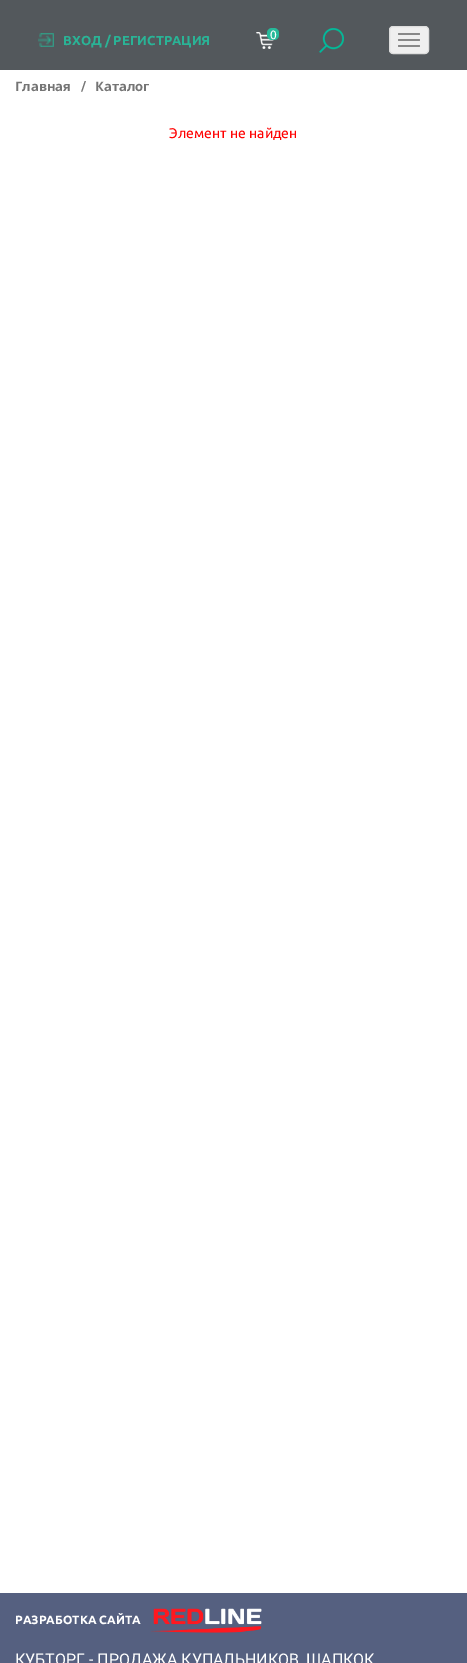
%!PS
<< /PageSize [467 1663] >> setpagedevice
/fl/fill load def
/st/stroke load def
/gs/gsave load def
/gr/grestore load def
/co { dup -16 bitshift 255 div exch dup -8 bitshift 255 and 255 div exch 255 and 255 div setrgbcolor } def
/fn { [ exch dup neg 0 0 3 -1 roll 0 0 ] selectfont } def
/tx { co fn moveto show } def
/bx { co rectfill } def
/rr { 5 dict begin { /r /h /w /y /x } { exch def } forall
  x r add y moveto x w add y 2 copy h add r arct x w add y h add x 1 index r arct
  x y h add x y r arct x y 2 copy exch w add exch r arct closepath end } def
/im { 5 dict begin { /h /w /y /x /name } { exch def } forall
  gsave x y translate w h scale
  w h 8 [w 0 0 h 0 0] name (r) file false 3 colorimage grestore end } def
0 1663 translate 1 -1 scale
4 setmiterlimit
0 0 467 1663 16#FFFFFF bx
0 0 467 70 16#53585C bx
(media/1.raw) 38 33 16 14 im
(media/2.raw) 256 32 18 17 im
16#26B99A co
267 28 12 12 5 rr fl
(media/3.raw) 319 28 25 25 im
16#EFEFEF co
389.5 26.5 39 27 3.5 rr gs fl gr
16#DDDDDD co
st
16#888888 co
398 33 22 2 1 rr fl
398 39 22 2 1 rr fl
398 45 22 2 1 rr fl
0 1593 467 70 16#556080 bx
(media/4.raw) 151 1608 111 25 im
(ВХОД / РЕГИСТРАЦИЯ) 63 45 /Ubuntu-Bold 13 16#2AB396 tx
(0) 270 39 /Ubuntu-Regular 12 16#FFFFFF tx
(Главная) 15 91 /OpenSans-Bold 13 16#757575 tx
(/) 81 91 /Roboto-Bold 14 16#757575 tx
(Каталог) 95 91 /OpenSans-Bold 13 16#757575 tx
(Элемент не найден) 169 138 /Ubuntu-Regular 14 16#FF0000 tx
(РАЗРАБОТКА САЙТА) 15 1624 /Ubuntu-Bold 12 16#FFFFFF tx
(КУБТОРГ - ПРОДАЖА КУПАЛЬНИКОВ, ШАПКОК) 15 1665 /Roboto-Regular 16 16#FFFFFF tx
showpage
